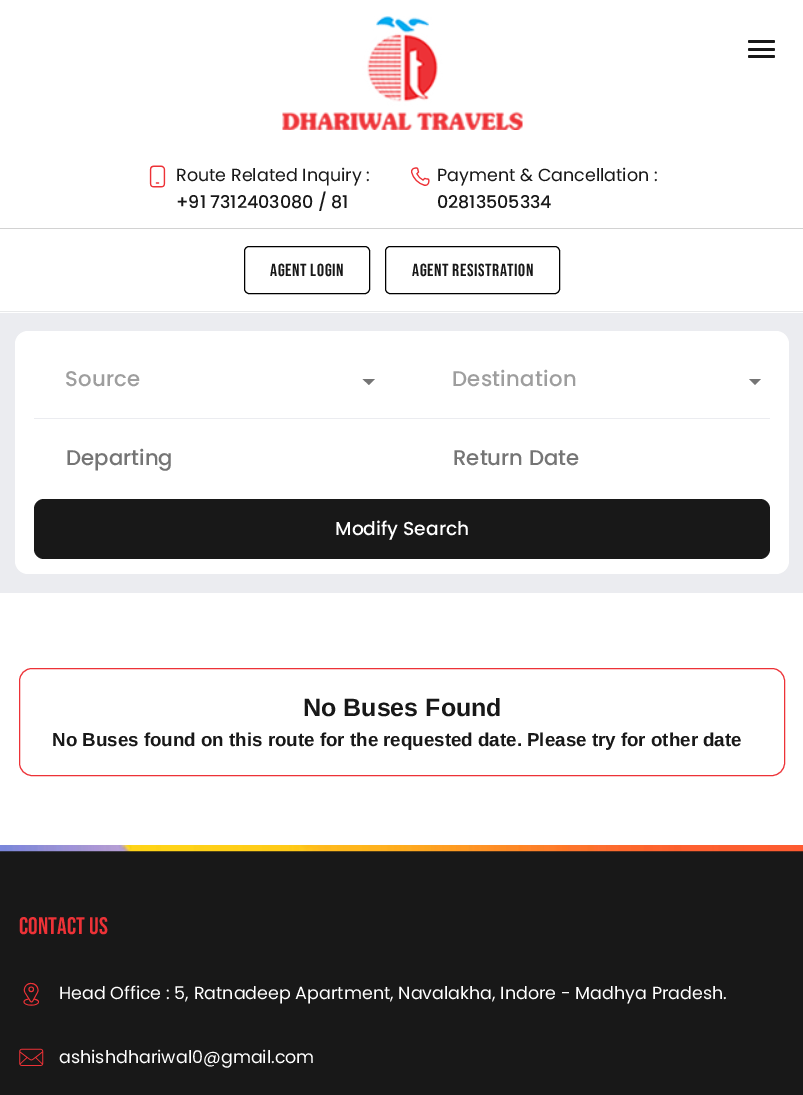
%!PS
<< /PageSize [803 1095] >> setpagedevice
/mt/moveto load def
/li/lineto load def
/cp/closepath load def
/fl/fill load def
/st/stroke load def
/co { dup -16 bitshift 255 div exch dup -8 bitshift 255 and 255 div exch 255 and 255 div setrgbcolor } def
/fn { [ exch dup neg 0 0 3 -1 roll 0 0 ] selectfont } def
/tx { co fn moveto show } def
/bx { co rectfill } def
/rr { 5 dict begin { /r /h /w /y /x } { exch def } forall
  x r add y moveto x w add y 2 copy h add r arct x w add y h add x 1 index r arct
  x y h add x y r arct x y 2 copy exch w add exch r arct closepath end } def
/im { 5 dict begin { /h /w /y /x /name } { exch def } forall
  gsave x y translate w h scale
  w h 8 [w 0 0 h 0 0] name (r) file false 3 colorimage grestore end } def
0 1095 translate 1 -1 scale
4 setmiterlimit
0 0 803 1095 16#FFFFFF bx
0 311 803 1 16#E8E9EA bx
(media/1.raw) 282 16 241 114 im
0 228 803 1 16#D2D2D2 bx
(media/2.raw) 149 165 17 23 im
(media/3.raw) 411 167 19 19 im
16#181818 co
748 40 27 3 1.5 rr fl
748 48 27 3 1.5 rr fl
748 55 27 3 1.5 rr fl
16#000000 co
244.5 246.5 125 47 4.5 rr st
385.5 246.5 174 47 4.5 rr st
0 313 803 280 16#EBECF0 bx
16#FFFFFF co
15 331 774 243 13 rr fl
16#757575 co
362.5 379 mt 369 385 li 375 379 li cp fl
749 379 mt 755 385 li 761 379 li cp fl
34 418 736 1 16#EBECF0 bx
16#181818 co
34 499 736 60 10 rr fl
16#ED3237 co
19.5 668.5 765 107 12.5 rr st
0 851 803 244 16#181818 bx
(media/4.raw) 0 845 803 7 im
(media/5.raw) 23 982 17 24 im
(media/6.raw) 19 1048 25 18 im
(Route Related Inquiry :) 176 181 /Poppins-Regular 17.5 16#181818 tx
(+91 7312403080 / 81) 176 208 /Poppins-Medium 17.5 16#181818 tx
(Payment & Cancellation :) 437 181 /Poppins-Regular 17.5 16#181818 tx
(02813505334) 437 208 /Poppins-Medium 17.5 16#181818 tx
/BebasNeue-Regular 17.5 fn
270 276 mt .6 0 (AGENT LOGIN) ashow
412 276 mt .6 0 (AGENT RESISTRATION) ashow
/Poppins-Medium 21.25 fn
16#9E9E9E co
65 386 mt .25 0 (Source) ashow
452 386 mt .25 0 (Destination) ashow
(Departing) 66 465 /Poppins-Medium 21.25 16#757575 tx
(Return Date) 453 465 /Poppins-Medium 21.25 16#757575 tx
(Modify Search) 335 535 /Poppins-Medium 18.75 16#FFFFFF tx
(No Buses Found) 303 716 /LiberationSans-Bold 25 16#181818 tx
(No Buses found on this route for the requested date. Please try for other date) 52 746 /LiberationSans-Bold 18.75 16#181818 tx
/BebasNeue-Regular 24 fn
16#ED3237 co
19 934 mt .1 0 (Contact Us) ashow
(Head Office : 5, Ratnadeep Apartment, Navalakha, Indore - Madhya Pradesh.) 59 999 /Poppins-Regular 17.5 16#FFFFFF tx
(ashishdhariwal0@gmail.com) 59 1063 /Poppins-Regular 17.5 16#FFFFFF tx
showpage
